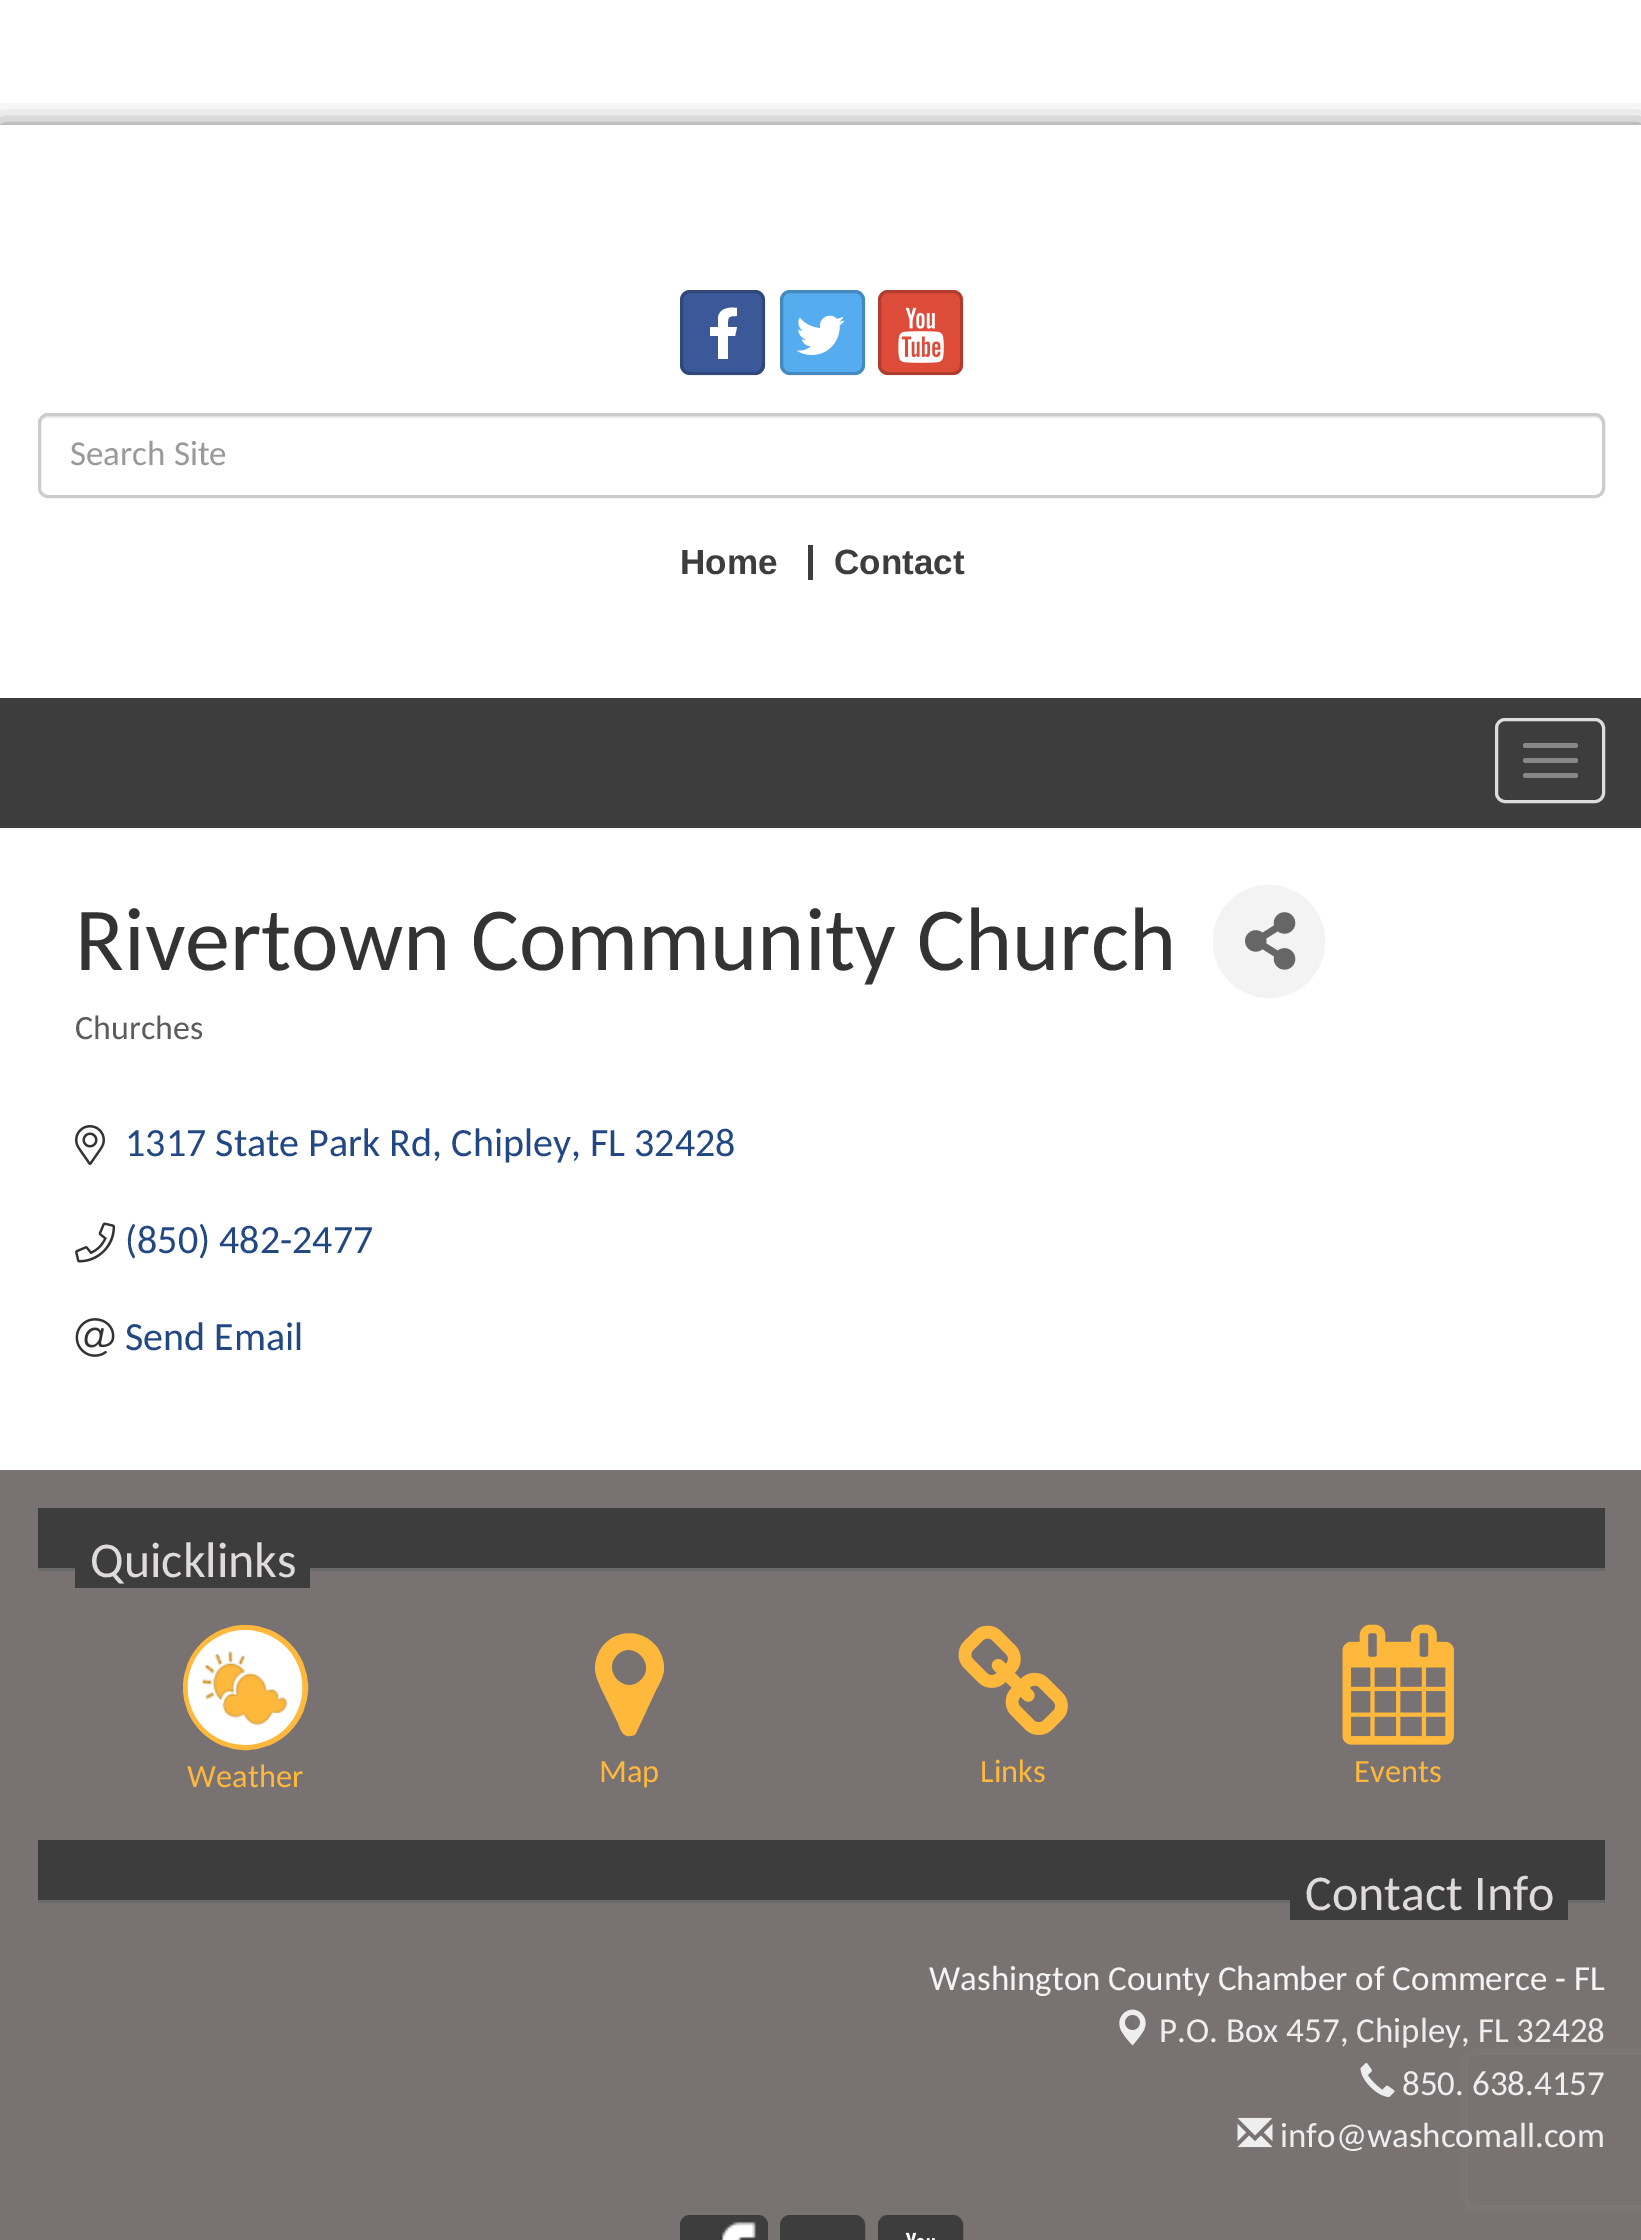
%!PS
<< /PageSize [1641 2240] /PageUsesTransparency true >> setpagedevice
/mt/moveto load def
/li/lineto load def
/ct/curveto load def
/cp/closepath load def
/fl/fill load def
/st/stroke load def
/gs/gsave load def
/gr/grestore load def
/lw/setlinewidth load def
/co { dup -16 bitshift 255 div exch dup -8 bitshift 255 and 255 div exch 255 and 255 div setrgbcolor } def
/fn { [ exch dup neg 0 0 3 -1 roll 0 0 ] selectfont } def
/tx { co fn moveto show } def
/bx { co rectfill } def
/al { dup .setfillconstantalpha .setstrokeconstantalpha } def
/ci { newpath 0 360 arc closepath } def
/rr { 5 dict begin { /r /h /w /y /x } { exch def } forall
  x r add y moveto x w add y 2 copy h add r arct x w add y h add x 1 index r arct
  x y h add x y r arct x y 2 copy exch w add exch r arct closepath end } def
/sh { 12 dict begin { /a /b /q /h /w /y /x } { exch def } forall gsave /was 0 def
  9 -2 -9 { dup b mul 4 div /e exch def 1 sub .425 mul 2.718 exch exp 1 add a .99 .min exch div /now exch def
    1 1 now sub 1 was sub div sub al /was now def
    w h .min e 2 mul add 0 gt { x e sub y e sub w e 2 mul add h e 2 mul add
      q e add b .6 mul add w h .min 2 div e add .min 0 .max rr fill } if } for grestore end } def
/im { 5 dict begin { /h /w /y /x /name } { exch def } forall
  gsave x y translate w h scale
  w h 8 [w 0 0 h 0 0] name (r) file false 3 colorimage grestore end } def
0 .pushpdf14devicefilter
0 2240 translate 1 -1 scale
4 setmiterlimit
0 0 1641 2240 16#FFFFFF bx
gs
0 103 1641 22 rectclip
16#000000 co
0 125 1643 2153 0 12.5 .5 sh
gr
16#3B5998 co
680 290 85 85 10 rr fl
0.2 al
16#000000 co
3 lw
681.5 291.5 82 82 8.5 rr st
1 al
16#FFFFFF co
737 308 mt 737 316 li 727 316 728 317 728 327 ct 737 327 li 735 336 li 728 336 li 728 359 li 718 359 li 718 336 li 710 336 li 710 327 li 718 327 li 718 317 li 720 308 729 307 737 308 ct cp fl
16#55ACEE co
780 290 85 85 10 rr fl
0.2 al
16#000000 co
781.5 291.5 82 82 8.5 rr st
1 al
(media/1.raw) 796 315 49 40 im
16#DD4B39 co
878 290 85 85 10 rr fl
0.2 al
16#000000 co
879.5 291.5 82 82 8.5 rr st
1 al
(media/2.raw) 898 307 46 56 im
16#ECECEC co
48 418 mt 1595 418 li 1599 418 1602 421 1602 425 ct 1602 491 li 1603 490 1603 488 1603 487 ct 1603 423 li 1603 419 1599 415 1595 415 ct 48 415 li 44 415 40 419 40 423 ct 40 425 li 40 421 43 418 48 418 ct cp fl
16#CCCCCC co
39.5 414.5 1564 82 8.5 rr st
808 545 5 35 16#3D3D3D bx
0 698 1641 130 16#3D3D3D bx
16#DDDDDD co
1496.5 719.5 107 82 8.5 rr st
16#888888 co
1523 743 55 5 2.5 rr fl
1523 758 55 5 2.5 rr fl
1523 773 55 5 2.5 rr fl
16#F3F3F3 co
1213 885 112 113 56 rr fl
(media/3.raw) 1245 912 51 58 im
(media/4.raw) 75 1125 30 40 im
(media/5.raw) 75 1222 41 41 im
(media/6.raw) 75 1318 40 39 im
0 1470 1641 770 16#797272 bx
38 1508 1567 60 16#3D3D3D bx
38 1568 1567 3 16#686868 bx
75 1568 235 20 16#3D3D3D bx
16#FEB83C co
245.5 1687.5 60 ci gs fl gr
5 lw
st
(media/7.raw) 187 1630 116 115 im
641 1680 mt 657 1664 633 1639 617 1655 ct 601 1671 625 1696 641 1680 ct cp 664 1668 mt 664 1675 661 1681 657 1688 ct 636 1733 li 635 1735 633 1736 630 1736 ct 622 1737 620 1728 618 1723 ct 601 1688 li 598 1681 595 1675 595 1668 ct 596 1635 635 1621 656 1646 ct 661 1652 664 1660 664 1668 ct cp fl
(media/8.raw) 958 1625 110 110 im
(media/9.raw) 1342 1624 112 121 im
38 1840 1567 60 16#3D3D3D bx
38 1900 1567 3 16#686868 bx
1290 1900 278 20 16#3D3D3D bx
(media/10.raw) 1119 2009 27 37 im
(media/11.raw) 1360 2063 35 34 im
(media/12.raw) 1237 2117 36 31 im
680 2215 88 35 10 rr fl
(media/13.raw) 719 2221 37 19 im
781.5 2216.5 82 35 8.5 rr gs fl gr
3 lw
st
879.5 2216.5 82 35 8.5 rr gs fl gr
st
(media/14.raw) 905 2232 30 8 im
gs
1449 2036 mt 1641 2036 li 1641 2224 li 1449 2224 li cp 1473 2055 mt 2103 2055 li 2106 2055 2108 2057 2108 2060 ct 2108 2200 li 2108 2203 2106 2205 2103 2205 ct 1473 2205 li 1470 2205 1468 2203 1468 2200 ct 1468 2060 li 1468 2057 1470 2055 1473 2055 ct cp eoclip newpath
16#808080 co
1468 2055 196 150 5 6 1 sh
gr
(Search Site) 70 465 /Carlito-Regular 35 16#999999 tx
(Home) 680 574 /LiberationSans-Bold 35 16#3D3D3D tx
(Contact) 834 574 /LiberationSans-Bold 35 16#3D3D3D tx
(Rivertown Community Church) 75 970 /Carlito-Regular 90 16#333333 tx
(Churches) 75 1039 /Carlito-Regular 34 16#5C5C5C tx
(1317 State Park Rd, Chipley, FL 32428) 125 1156 /Carlito-Regular 40 16#224884 tx
(\(850\) 482-2477) 125 1253 /Carlito-Regular 40 16#224884 tx
(Send Email) 125 1350 /Carlito-Regular 40 16#224884 tx
(Quicklinks) 90 1577 /Carlito-Regular 50 16#E0DBDB tx
(Weather) 187 1787 /Carlito-Regular 32.5 16#FEB83C tx
(Map) 599 1782 /Carlito-Regular 32.5 16#FEB83C tx
(Links) 980 1782 /Carlito-Regular 32.5 16#FEB83C tx
(Events) 1354 1782 /Carlito-Regular 32.5 16#FEB83C tx
(Contact Info) 1305 1910 /Carlito-Regular 50 16#E0DBDB tx
(Washington County Chamber of Commerce - FL) 929 1990 /Carlito-Regular 35 16#F4F4F4 tx
(P.O. Box 457, Chipley, FL 32428) 1159 2042 /Carlito-Regular 35 16#EEEEEE tx
(850. 638.4157) 1402 2095 /Carlito-Regular 35 16#EEEEEE tx
(info@washcomall.com) 1280 2147 /Carlito-Regular 35 16#EEEEEE tx
.poppdf14devicefilter showpage
